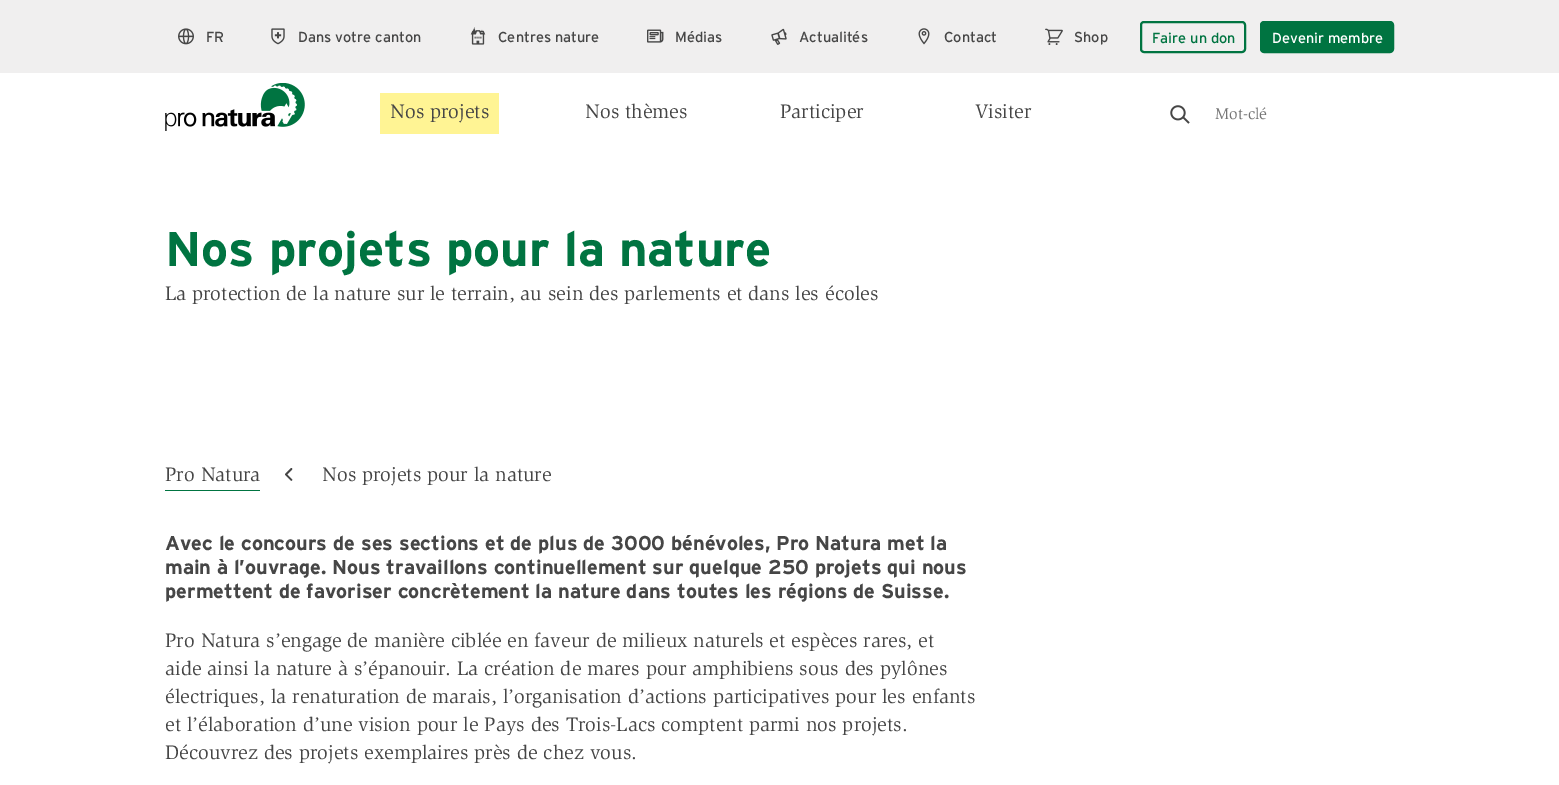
%!PS
<< /PageSize [1559 785] >> setpagedevice
/fl/fill load def
/st/stroke load def
/gs/gsave load def
/gr/grestore load def
/lw/setlinewidth load def
/co { dup -16 bitshift 255 div exch dup -8 bitshift 255 and 255 div exch 255 and 255 div setrgbcolor } def
/fn { [ exch dup neg 0 0 3 -1 roll 0 0 ] selectfont } def
/tx { co fn moveto show } def
/bx { co rectfill } def
/rr { 5 dict begin { /r /h /w /y /x } { exch def } forall
  x r add y moveto x w add y 2 copy h add r arct x w add y h add x 1 index r arct
  x y h add x y r arct x y 2 copy exch w add exch r arct closepath end } def
/im { 5 dict begin { /h /w /y /x /name } { exch def } forall
  gsave x y translate w h scale
  w h 8 [w 0 0 h 0 0] name (r) file false 3 colorimage grestore end } def
0 785 translate 1 -1 scale
4 setmiterlimit
0 0 1559 785 16#FFFFFF bx
0 0 1559 73 16#F0EFEF bx
(media/1.raw) 178 28 16 17 im
(media/2.raw) 271 28 14 17 im
(media/3.raw) 470 27 16 18 im
(media/4.raw) 647 29 17 14 im
(media/5.raw) 771 28 16 17 im
(media/6.raw) 918 28 12 17 im
(media/7.raw) 1045 28 18 17 im
16#007441 co
2 lw
1141 22 104 30 3 rr st
1261 22 132 30 3 rr gs fl gr
st
(media/8.raw) 165 83 140 48 im
380 93 119 41 16#FFF494 bx
(media/9.raw) 1170 105 20 19 im
165 490 95 1 16#007441 bx
(media/10.raw) 285 468 8 13 im
(FR) 206 42 /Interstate-Regular 14.5 16#464646 tx
(Dans votre canton) 298 42 /Interstate-Regular 14.5 16#464646 tx
(Centres nature) 498 42 /Interstate-Regular 14.5 16#464646 tx
(Médias) 675 42 /Interstate-Regular 14.5 16#464646 tx
(Actualités) 799 42 /Interstate-Regular 14.5 16#464646 tx
(Contact) 944 42 /Interstate-Regular 14.5 16#464646 tx
(Shop) 1074 42 /Interstate-Regular 14.5 16#464646 tx
(Faire un don) 1152 43 /Interstate-Regular 14.5 16#007441 tx
(Devenir membre) 1272 43 /Interstate-Regular 14.5 16#FFFFFF tx
(Nos projets) 390 118 /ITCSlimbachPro-Regular 20 16#464646 tx
(Nos thèmes) 585 118 /ITCSlimbachPro-Regular 20 16#464646 tx
(Participer) 780 118 /ITCSlimbachPro-Regular 20 16#464646 tx
(Visiter) 975 118 /ITCSlimbachPro-Regular 20 16#464646 tx
(Mot-clé) 1215 119 /ITCSlimbachPro-Regular 16 16#757575 tx
(Nos projets pour la nature) 165 266 /Interstate-Bold 48.75 16#007441 tx
(La protection de la nature sur le terrain, au sein des parlements et dans les écoles) 165 300 /ITCSlimbachPro-Regular 20 16#464646 tx
(Pro Natura) 165 481 /ITCSlimbachPro-Regular 20 16#464646 tx
(Nos projets pour la nature) 322 481 /ITCSlimbachPro-Regular 20 16#464646 tx
(Avec le concours de ses sections et de plus de 3000 bénévoles, Pro Natura met la) 165 550 /Interstate-Bold 20 16#464646 tx
(main à l’ouvrage. Nous travaillons continuellement sur quelque 250 projets qui nous) 165 574 /Interstate-Bold 20 16#464646 tx
(permettent de favoriser concrètement la nature dans toutes les régions de Suisse.) 165 598 /Interstate-Bold 20 16#464646 tx
(Pro Natura s’engage de manière ciblée en faveur de milieux naturels et espèces rares, et) 165 647 /ITCSlimbachPro-Regular 20 16#464646 tx
(aide ainsi la nature à s’épanouir. La création de mares pour amphibiens sous des pylônes) 165 675 /ITCSlimbachPro-Regular 20 16#464646 tx
(électriques, la renaturation de marais, l’organisation d’actions participatives pour les enfants) 165 703 /ITCSlimbachPro-Regular 20 16#464646 tx
(et l’élaboration d’une vision pour le Pays des Trois-Lacs comptent parmi nos projets.) 165 731 /ITCSlimbachPro-Regular 20 16#464646 tx
(Découvrez des projets exemplaires près de chez vous.) 165 759 /ITCSlimbachPro-Regular 20 16#464646 tx
showpage
